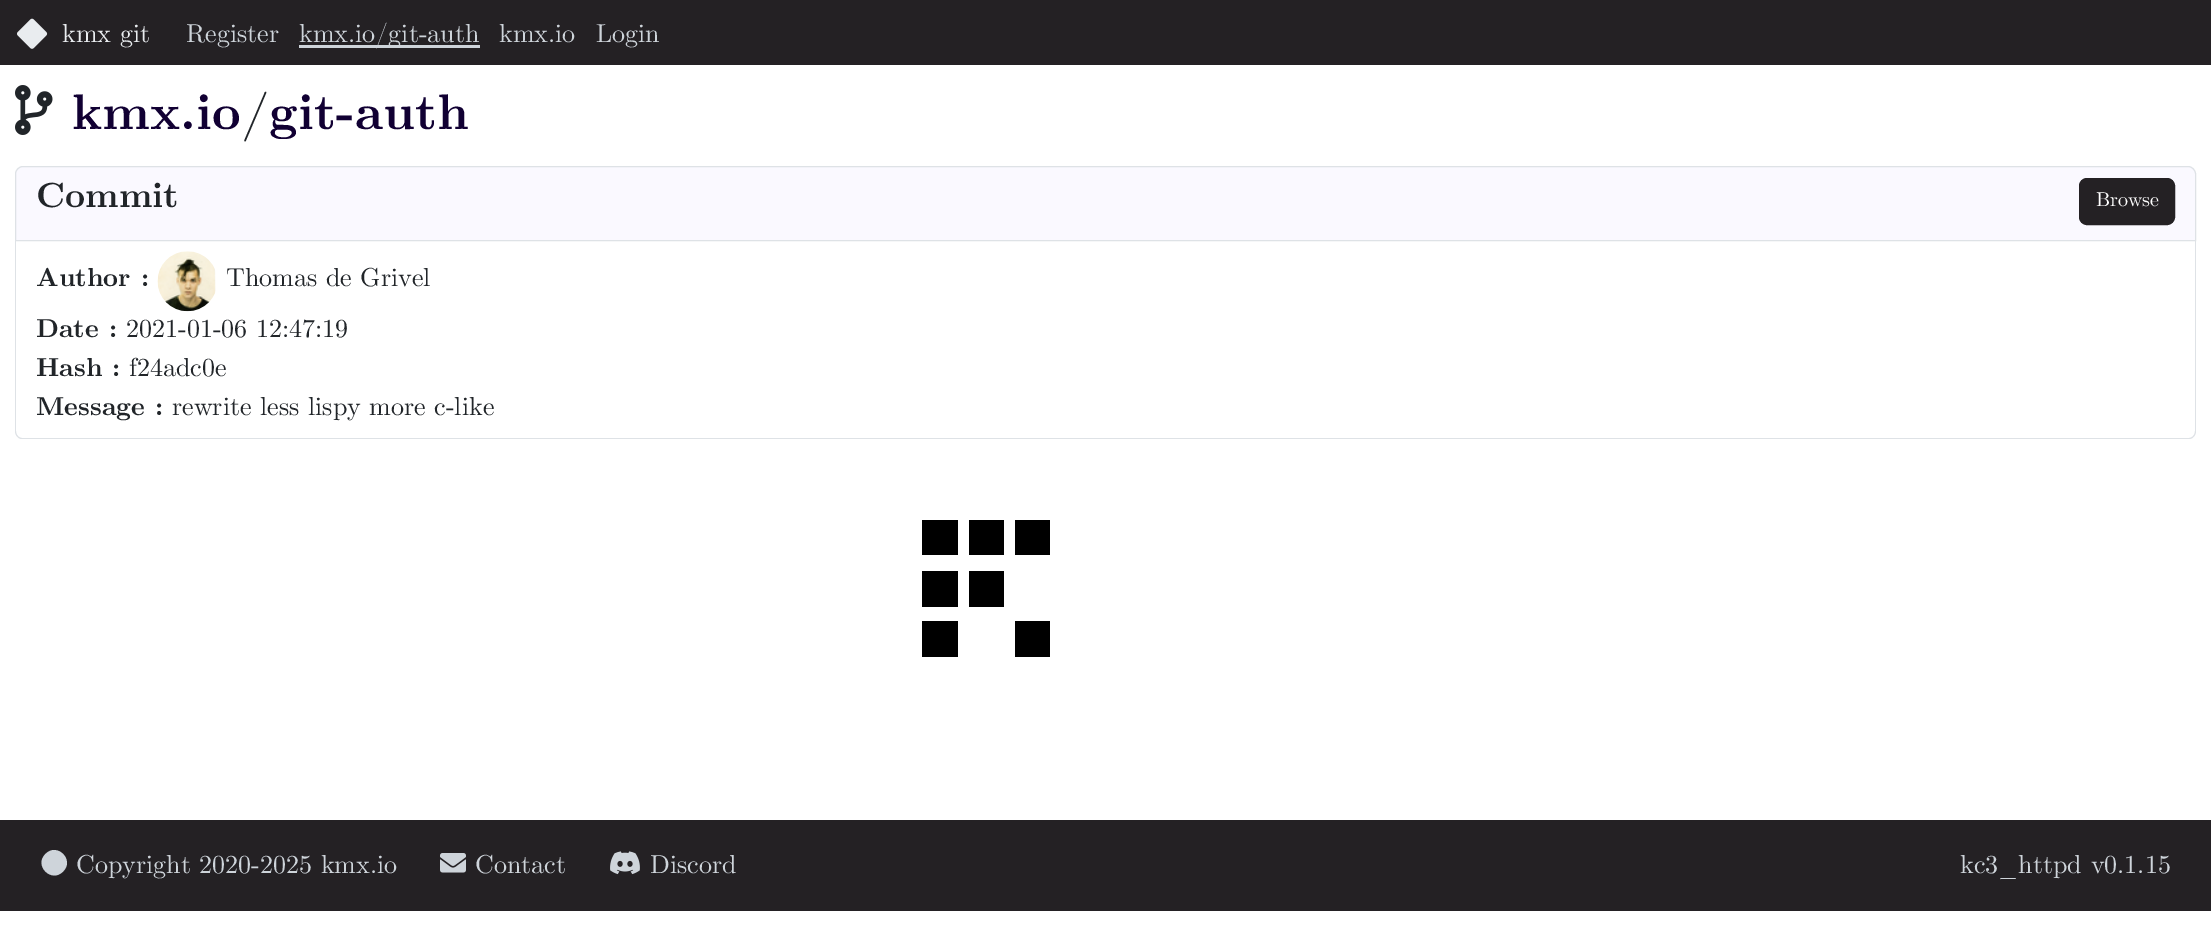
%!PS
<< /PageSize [2211 941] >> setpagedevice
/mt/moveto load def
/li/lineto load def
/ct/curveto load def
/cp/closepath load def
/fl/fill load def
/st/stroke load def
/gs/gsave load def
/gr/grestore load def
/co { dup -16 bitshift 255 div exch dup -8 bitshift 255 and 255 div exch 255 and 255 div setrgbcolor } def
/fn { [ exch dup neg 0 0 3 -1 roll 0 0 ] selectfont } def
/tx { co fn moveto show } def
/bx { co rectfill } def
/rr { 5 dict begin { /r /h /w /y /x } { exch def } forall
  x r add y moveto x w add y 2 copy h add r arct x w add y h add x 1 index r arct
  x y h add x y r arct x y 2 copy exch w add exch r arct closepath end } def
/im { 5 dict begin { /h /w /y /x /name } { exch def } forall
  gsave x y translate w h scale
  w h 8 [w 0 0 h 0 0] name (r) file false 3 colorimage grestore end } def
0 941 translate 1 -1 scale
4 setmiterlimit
0 0 2211 941 16#FFFFFF bx
0 0 2211 65 16#242124 bx
(media/1.raw) 17 18 31 31 im
299 45 181 3 16#CED4DA bx
(media/2.raw) 15 85 38 50 im
16#FAF9FF co
23 166.5 mt 2188 166.5 li 2192 166.5 2195.5 170 2195.5 174 ct 2195.5 240.5 li 15.5 240.5 li 15.5 174 li 15.5 170 19 166.5 23 166.5 ct cp gs fl gr
16#DEE2E6 co
st
16#242124 co
2079.5 178.5 95 46 7.5 rr gs fl gr
st
16#DEE2E6 co
15 241 mt 2196 241 li 2196 431 li 2196 435 2193 439 2189 439 ct 22 439 li 18 439 15 435 15 431 ct cp 16 241 mt 2195 241 li 2195 431 li 2195 435 2192 438 2189 438 ct 22 438 li 19 438 16 435 16 431 ct cp eofill
(media/3.raw) 157 251 59 61 im
922 520 36 35 16#000000 bx
969 520 35 35 16#000000 bx
1015 520 35 35 16#000000 bx
922 571 36 36 16#000000 bx
969 571 35 36 16#000000 bx
922 621 36 36 16#000000 bx
1015 621 35 36 16#000000 bx
0 820 2211 91 16#242124 bx
16#CED4DA co
45.5 854 mt 57 842 75 860 63 871.5 ct 51.5 883.5 33.5 865.5 45.5 854 ct cp fl
(media/4.raw) 440 853 26 20 im
(media/5.raw) 610 851 30 24 im
(kmx git) 62 42 /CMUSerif-Regular 26 16#E9ECEF tx
(Register) 186 42 /CMUSerif-Regular 26 16#CED4DA tx
(kmx.io/git-auth) 299 42 /CMUSerif-Regular 26 16#CED4DA tx
(kmx.io) 499 42 /CMUSerif-Regular 26 16#CED4DA tx
(Login) 596 42 /CMUSerif-Regular 26 16#CED4DA tx
(kmx.io) 72 129 /CMUSerif-Bold 50 16#110033 tx
(/) 241 129 /CMUSerif-Bold 50 16#212529 tx
(git-auth) 269 129 /CMUSerif-Bold 50 16#110033 tx
(Commit) 36 207 /CMUSerif-Bold 35 16#212529 tx
(Browse) 2096 206 /CMUSerif-Regular 20 16#FFFFFF tx
(Author :) 36 286 /CMUSerif-Bold 26 16#212529 tx
(Thomas de Grivel) 226 286 /CMUSerif-Regular 26 16#212529 tx
(Date :) 36 337 /CMUSerif-Bold 26 16#212529 tx
(2021-01-06 12:47:19) 126 337 /CMUSerif-Regular 26 16#212529 tx
(Hash :) 36 376 /CMUSerif-Bold 26 16#212529 tx
(f24adc0e) 129 376 /CMUSerif-Regular 26 16#212529 tx
(Message :) 36 415 /CMUSerif-Bold 26 16#212529 tx
(rewrite less lispy more c-like) 172 415 /CMUSerif-Regular 26 16#212529 tx
(Copyright 2020-2025 kmx.io) 76 873 /CMUSerif-Regular 26 16#CED4DA tx
(Contact) 475 873 /CMUSerif-Regular 26 16#CED4DA tx
(Discord) 650 873 /CMUSerif-Regular 26 16#CED4DA tx
(kc3_httpd v0.1.15) 1960 873 /CMUSerif-Regular 26 16#CED4DA tx
showpage
